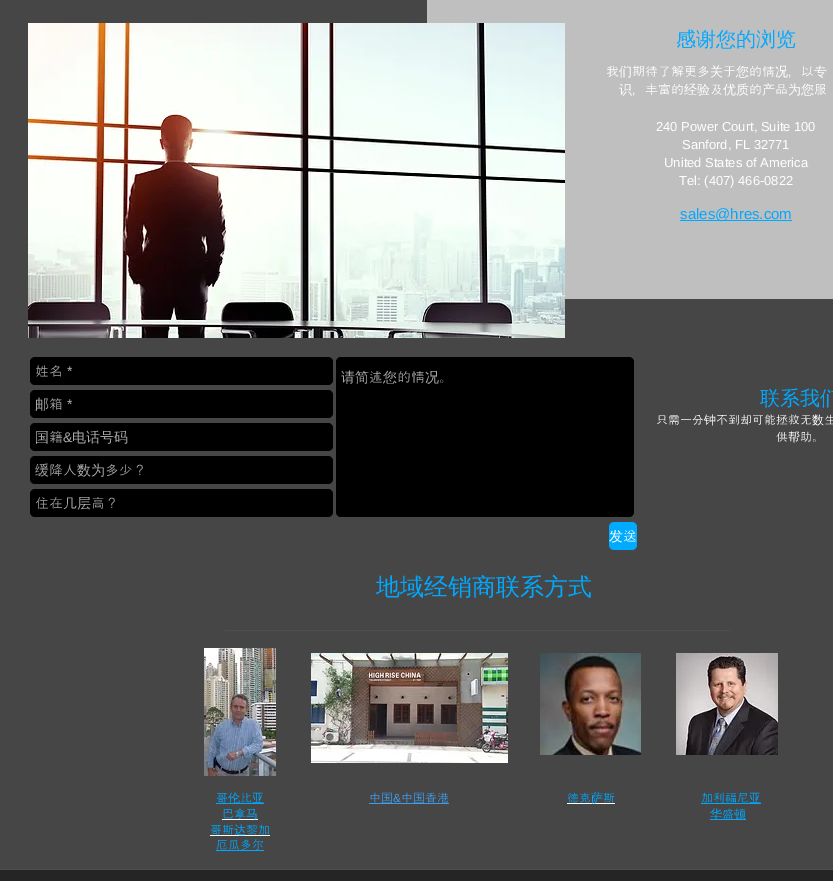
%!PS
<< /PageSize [833 881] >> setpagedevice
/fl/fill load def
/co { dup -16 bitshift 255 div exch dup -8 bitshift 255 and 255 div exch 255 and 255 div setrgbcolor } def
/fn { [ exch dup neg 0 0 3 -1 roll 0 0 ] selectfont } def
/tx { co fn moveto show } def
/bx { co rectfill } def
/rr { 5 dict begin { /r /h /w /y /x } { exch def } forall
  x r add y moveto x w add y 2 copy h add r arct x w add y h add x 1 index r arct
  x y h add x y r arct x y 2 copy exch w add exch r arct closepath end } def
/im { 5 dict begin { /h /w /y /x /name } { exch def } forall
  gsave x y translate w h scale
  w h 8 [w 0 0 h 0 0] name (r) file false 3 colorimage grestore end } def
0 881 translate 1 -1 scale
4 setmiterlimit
0 0 833 881 16#4E4E4E bx
0 0 833 869 16#464646 bx
427 0 406 299 16#BFBFBF bx
(media/1.raw) 28 23 537 315 im
680 220 112 1 16#00A9FF bx
16#000000 co
30 357 303 28 5 rr fl
336 357 298 160 5 rr fl
30 390 303 28 5 rr fl
30 423 303 28 5 rr fl
30 456 303 28 5 rr fl
30 489 303 28 5 rr fl
16#00AAFF co
609 522 28 28 5 rr fl
225 630 506 1 16#4E4E4E bx
(media/2.raw) 204 648 72 128 im
(media/3.raw) 311 653 197 110 im
(media/4.raw) 540 653 101 102 im
(media/5.raw) 676 653 102 102 im
216 803 48 1 16#00A9FF bx
222 819 36 1 16#FFFFFF bx
210 835 60 1 16#FFFFFF bx
216 850 48 1 16#00A9FF bx
369 803 80 1 16#3E9CEA bx
567 803 48 1 16#FFFFFF bx
701 803 60 1 16#00A9FF bx
710 819 36 1 16#00A9FF bx
0 870 833 11 16#252525 bx
(感谢您的浏览) 676 46 /WenQuanYiZenHei-Medium 20 16#00A9FF tx
(我) 606 76 /Dotum-Regular 13 16#FFFFFF tx
(们) 619 76 /WenQuanYiZenHei-Medium 13 16#FFFFFF tx
(期待了解更多) 632 76 /Dotum-Regular 13 16#FFFFFF tx
(关) 710 76 /WenQuanYiZenHei-Medium 13 16#FFFFFF tx
(于) 723 76 /Dotum-Regular 13 16#FFFFFF tx
(您) 736 76 /WenQuanYiZenHei-Medium 13 16#FFFFFF tx
(的情) 749 76 /Dotum-Regular 13 16#FFFFFF tx
(况) 775 76 /WenQuanYiZenHei-Medium 13 16#FFFFFF tx
(，以) 788 76 /Dotum-Regular 13 16#FFFFFF tx
(专) 814 76 /WenQuanYiZenHei-Medium 13 16#FFFFFF tx
(识) 619 94 /WenQuanYiZenHei-Medium 13 16#FFFFFF tx
(，丰富的) 632 94 /Dotum-Regular 13 16#FFFFFF tx
(经验) 684 94 /WenQuanYiZenHei-Medium 13 16#FFFFFF tx
(及) 710 94 /Dotum-Regular 13 16#FFFFFF tx
(优质) 723 94 /WenQuanYiZenHei-Medium 13 16#FFFFFF tx
(的) 749 94 /Dotum-Regular 13 16#FFFFFF tx
(产) 762 94 /WenQuanYiZenHei-Medium 13 16#FFFFFF tx
(品) 775 94 /Dotum-Regular 13 16#FFFFFF tx
(为您) 788 94 /WenQuanYiZenHei-Medium 13 16#FFFFFF tx
(服) 814 94 /Dotum-Regular 13 16#FFFFFF tx
(240 Power Court, Suite 100) 656 131 /LiberationSans-Regular 13 16#FFFFFF tx
(Sanford, FL 32771) 682 149 /LiberationSans-Regular 13 16#FFFFFF tx
(United States of America) 664 167 /LiberationSans-Regular 13 16#FFFFFF tx
(Tel: \(407\) 466-0822) 679 185 /LiberationSans-Regular 13 16#FFFFFF tx
(sales@hres.com) 680 219 /LiberationSans-Regular 15 16#00A9FF tx
(姓名) 35 376 /Dotum-Regular 14 16#A9A9A9 tx
(*) 67 376 /LiberationSans-Regular 14 16#A9A9A9 tx
(请简) 341 382 /WenQuanYiZenHei-Medium 14 16#A9A9A9 tx
(述) 369 382 /Dotum-Regular 14 16#A9A9A9 tx
(您) 383 382 /WenQuanYiZenHei-Medium 14 16#A9A9A9 tx
(的情) 397 382 /Dotum-Regular 14 16#A9A9A9 tx
(况) 425 382 /WenQuanYiZenHei-Medium 14 16#A9A9A9 tx
(。) 439 382 /Dotum-Regular 14 16#A9A9A9 tx
(邮) 35 409 /WenQuanYiZenHei-Medium 14 16#A9A9A9 tx
(箱) 49 409 /Dotum-Regular 14 16#A9A9A9 tx
(*) 67 409 /LiberationSans-Regular 14 16#A9A9A9 tx
(国) 35 442 /WenQuanYiZenHei-Medium 14 16#A9A9A9 tx
(籍) 49 442 /Dotum-Regular 14 16#A9A9A9 tx
(&) 63 442 /LiberationSans-Regular 14 16#A9A9A9 tx
(电话号码) 72 442 /WenQuanYiZenHei-Medium 14 16#A9A9A9 tx
(缓) 35 475 /WenQuanYiZenHei-Medium 14 16#A9A9A9 tx
(降人) 49 475 /Dotum-Regular 14 16#A9A9A9 tx
(数为) 77 475 /WenQuanYiZenHei-Medium 14 16#A9A9A9 tx
(多少？) 105 475 /Dotum-Regular 14 16#A9A9A9 tx
(住在几) 35 508 /Dotum-Regular 14 16#A9A9A9 tx
(层) 77 508 /WenQuanYiZenHei-Medium 14 16#A9A9A9 tx
(高？) 91 508 /Dotum-Regular 14 16#A9A9A9 tx
(发) 609 541 /WenQuanYiZenHei-Medium 14 16#FFFFFF tx
(送) 623 541 /Dotum-Regular 14 16#FFFFFF tx
(联系我们) 760 405 /WenQuanYiZenHei-Medium 20 16#00A9FF tx
(只需一分) 656 424 /Dotum-Regular 12 16#FFFFFF tx
(钟) 704 424 /WenQuanYiZenHei-Medium 12 16#FFFFFF tx
(不到却可能拯救无) 716 424 /Dotum-Regular 12 16#FFFFFF tx
(数) 812 424 /WenQuanYiZenHei-Medium 12 16#FFFFFF tx
(生) 824 424 /Dotum-Regular 12 16#FFFFFF tx
(供) 776 441 /Dotum-Regular 12 16#FFFFFF tx
(帮) 788 441 /WenQuanYiZenHei-Medium 12 16#FFFFFF tx
(助。) 800 441 /Dotum-Regular 12 16#FFFFFF tx
(地域经销商联系方式) 376 595 /WenQuanYiZenHei-Medium 24 16#00A9FF tx
(哥) 216 802 /Dotum-Regular 12 16#00A9FF tx
(伦) 228 802 /WenQuanYiZenHei-Medium 12 16#00A9FF tx
(比) 240 802 /Dotum-Regular 12 16#00A9FF tx
(亚) 252 802 /WenQuanYiZenHei-Medium 12 16#00A9FF tx
(巴拿) 222 818 /Dotum-Regular 12 16#00A9FF tx
(马) 246 818 /WenQuanYiZenHei-Medium 12 16#00A9FF tx
(哥斯) 210 834 /Dotum-Regular 12 16#00A9FF tx
(达) 234 834 /WenQuanYiZenHei-Medium 12 16#00A9FF tx
(黎加) 246 834 /Dotum-Regular 12 16#00A9FF tx
(厄瓜多尔) 216 849 /Dotum-Regular 12 16#00A9FF tx
(中) 369 802 /Dotum-Regular 12 16#3E9CEA tx
(国) 381 802 /WenQuanYiZenHei-Medium 12 16#3E9CEA tx
(&) 393 802 /LiberationSans-Regular 12 16#3E9CEA tx
(中) 401 802 /Dotum-Regular 12 16#3E9CEA tx
(国) 413 802 /WenQuanYiZenHei-Medium 12 16#3E9CEA tx
(香港) 425 802 /Dotum-Regular 12 16#3E9CEA tx
(德克) 567 802 /Dotum-Regular 12 16#00A9FF tx
(萨) 591 802 /WenQuanYiZenHei-Medium 12 16#00A9FF tx
(斯) 603 802 /Dotum-Regular 12 16#00A9FF tx
(加利福尼) 701 802 /Dotum-Regular 12 16#00A9FF tx
(亚) 749 802 /WenQuanYiZenHei-Medium 12 16#00A9FF tx
(华) 710 818 /WenQuanYiZenHei-Medium 12 16#00A9FF tx
(盛) 722 818 /Dotum-Regular 12 16#00A9FF tx
(顿) 734 818 /WenQuanYiZenHei-Medium 12 16#00A9FF tx
showpage
